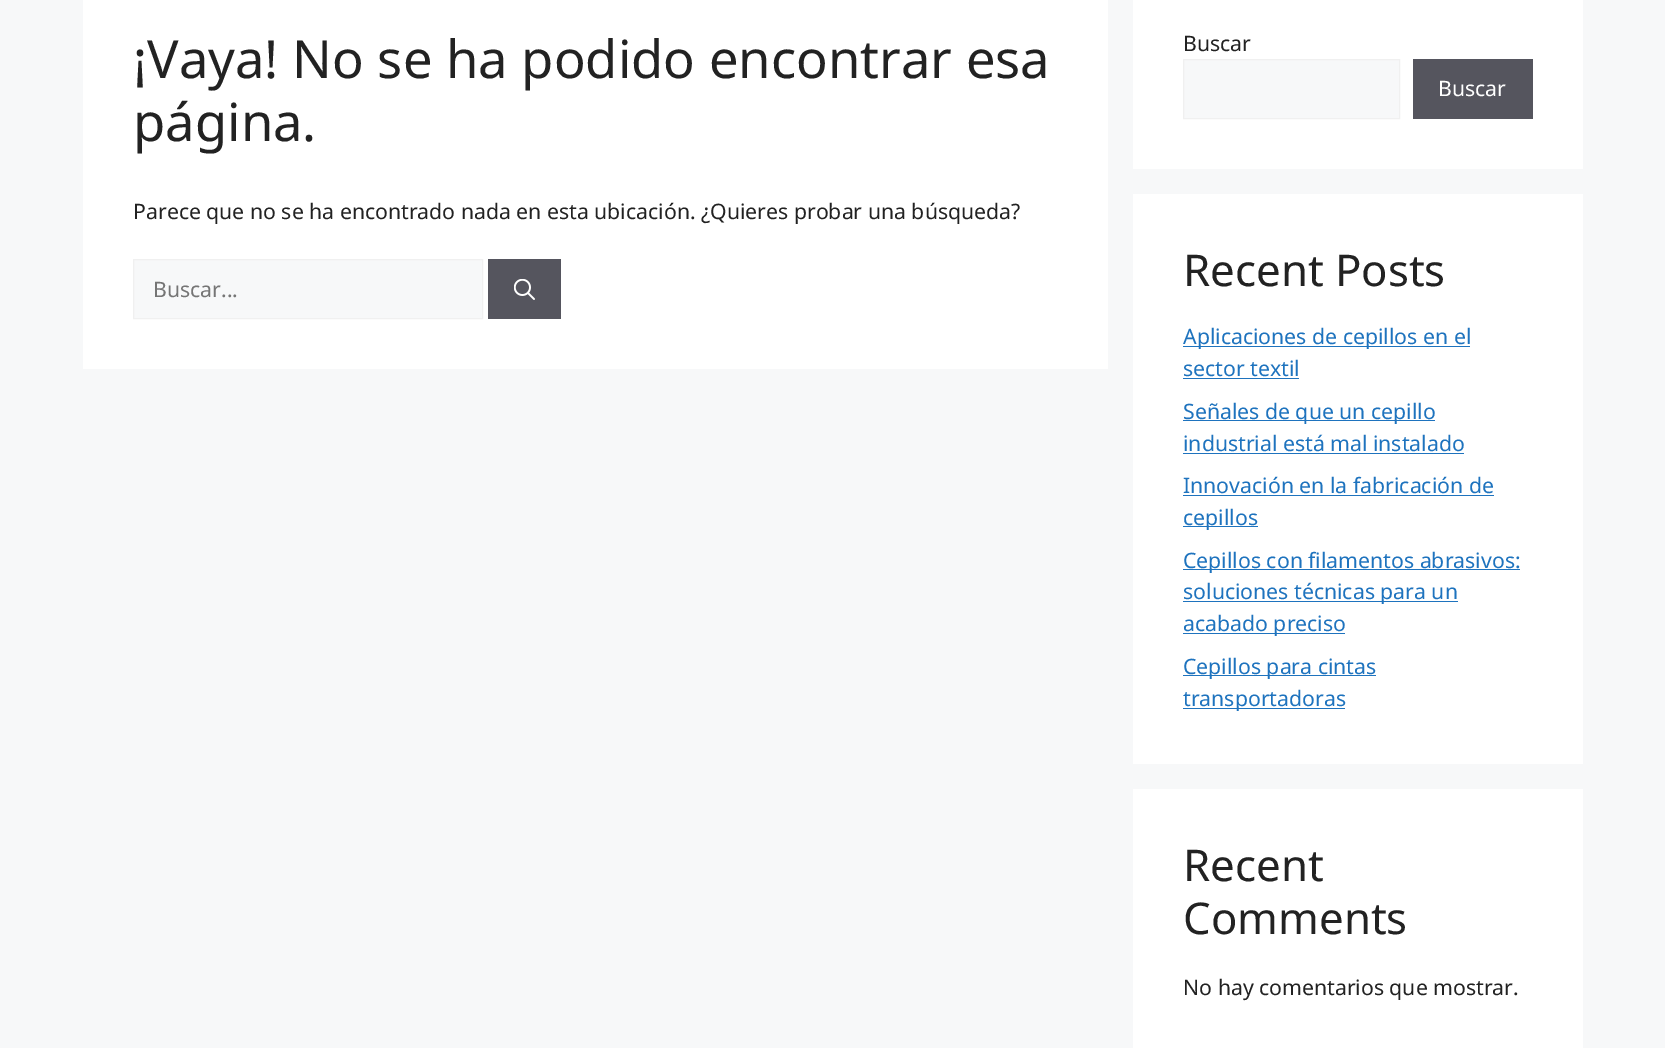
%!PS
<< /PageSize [1665 1048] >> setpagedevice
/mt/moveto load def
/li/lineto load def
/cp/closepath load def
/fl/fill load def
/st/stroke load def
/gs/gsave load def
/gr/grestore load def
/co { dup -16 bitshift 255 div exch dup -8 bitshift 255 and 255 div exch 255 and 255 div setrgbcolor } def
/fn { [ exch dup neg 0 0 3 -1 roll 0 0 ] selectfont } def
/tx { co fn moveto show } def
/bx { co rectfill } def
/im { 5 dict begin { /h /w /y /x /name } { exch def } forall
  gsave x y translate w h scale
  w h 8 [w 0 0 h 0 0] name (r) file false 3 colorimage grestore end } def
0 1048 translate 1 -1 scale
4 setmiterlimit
0 0 1665 1048 16#F7F8F9 bx
83 0 1025 369 16#FFFFFF bx
16#F7F8F9 co
133.5 259.5 mt 482.5 259.5 li 482.5 318.5 li 133.5 318.5 li cp gs fl gr
16#F0F0F0 co
st
488 259 73 60 16#55555E bx
(media/1.raw) 514 279 21 21 im
1133 0 450 169 16#FFFFFF bx
16#F7F8F9 co
1183.5 59.5 mt 1399.5 59.5 li 1399.5 118.5 li 1183.5 118.5 li cp gs fl gr
16#F0F0F0 co
st
1413 59 120 60 16#55555E bx
1133 194 450 570 16#FFFFFF bx
1183 346 287 1 16#1E73BE bx
1183 378 116 1 16#1E73BE bx
1183 420 252 1 16#1E73BE bx
1183 453 281 1 16#1E73BE bx
1183 495 311 1 16#1E73BE bx
1183 526 75 1 16#1E73BE bx
1183 569 337 1 16#1E73BE bx
1183 601 275 1 16#1E73BE bx
1183 633 162 1 16#1E73BE bx
1183 675 193 1 16#1E73BE bx
1183 708 162 1 16#1E73BE bx
1133 789 450 259 16#FFFFFF bx
(¡Vaya! No se ha podido encontrar esa) 133 78 /NotoSans-Regular 52.5 16#222222 tx
(página.) 133 141 /NotoSans-Regular 52.5 16#222222 tx
(Parece que no se ha encontrado nada en esta ubicación. ¿Quieres probar una búsqueda?) 133 219 /NotoSans-Regular 21.25 16#222222 tx
(Buscar...) 153 297 /NotoSans-Regular 21.25 16#757575 tx
(Buscar) 1183 51 /NotoSans-Regular 21.25 16#222222 tx
(Buscar) 1438 96 /NotoSans-Regular 21.25 16#FFFFFF tx
(Recent Posts) 1183 286 /NotoSans-Regular 43.75 16#222222 tx
(Aplicaciones de cepillos en el) 1183 344 /NotoSans-Regular 21.25 16#1E73BE tx
(sector textil) 1183 376 /NotoSans-Regular 21.25 16#1E73BE tx
(Señales de que un cepillo) 1183 419 /NotoSans-Regular 21.25 16#1E73BE tx
(industrial está mal instalado) 1183 451 /NotoSans-Regular 21.25 16#1E73BE tx
(Innovación en la fabricación de) 1183 493 /NotoSans-Regular 21.25 16#1E73BE tx
(cepillos) 1183 525 /NotoSans-Regular 21.25 16#1E73BE tx
(Cepillos con filamentos abrasivos:) 1183 568 /NotoSans-Regular 21.25 16#1E73BE tx
(soluciones técnicas para un) 1183 599 /NotoSans-Regular 21.25 16#1E73BE tx
(acabado preciso) 1183 631 /NotoSans-Regular 21.25 16#1E73BE tx
(Cepillos para cintas) 1183 674 /NotoSans-Regular 21.25 16#1E73BE tx
(transportadoras) 1183 706 /NotoSans-Regular 21.25 16#1E73BE tx
(Recent) 1183 881 /NotoSans-Regular 43.75 16#222222 tx
(Comments) 1183 934 /NotoSans-Regular 43.75 16#222222 tx
(No hay comentarios que mostrar.) 1183 995 /NotoSans-Regular 21.25 16#222222 tx
showpage
